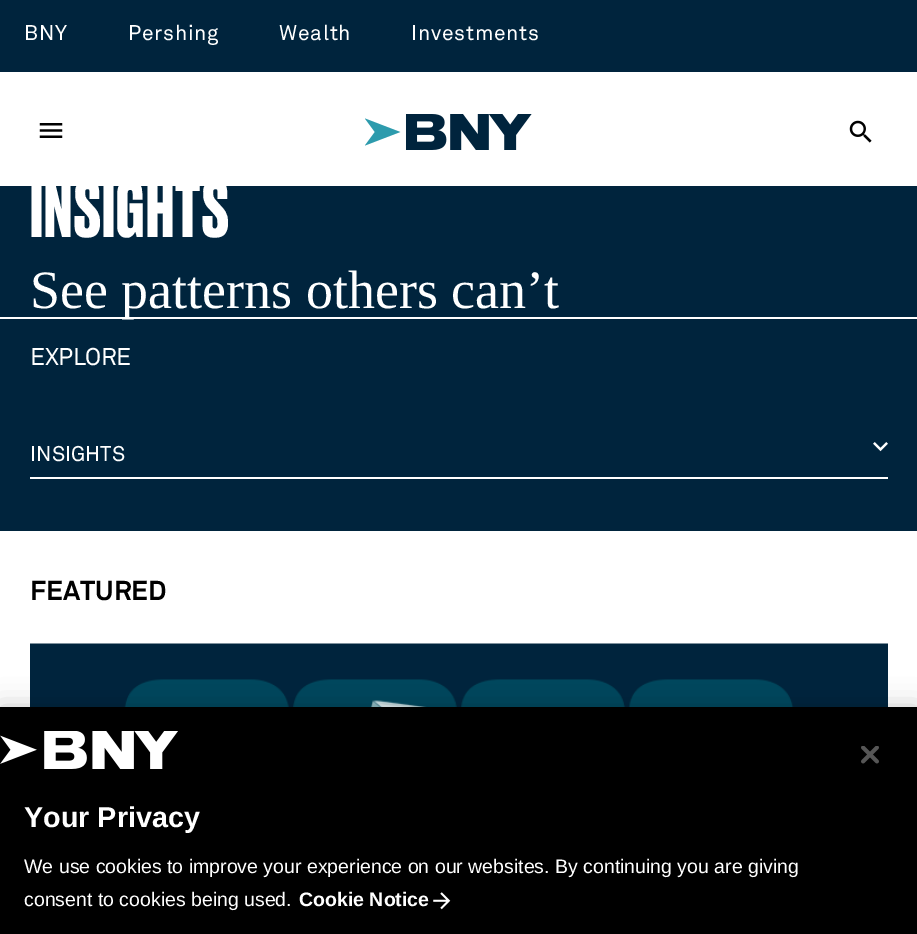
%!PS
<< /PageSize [917 934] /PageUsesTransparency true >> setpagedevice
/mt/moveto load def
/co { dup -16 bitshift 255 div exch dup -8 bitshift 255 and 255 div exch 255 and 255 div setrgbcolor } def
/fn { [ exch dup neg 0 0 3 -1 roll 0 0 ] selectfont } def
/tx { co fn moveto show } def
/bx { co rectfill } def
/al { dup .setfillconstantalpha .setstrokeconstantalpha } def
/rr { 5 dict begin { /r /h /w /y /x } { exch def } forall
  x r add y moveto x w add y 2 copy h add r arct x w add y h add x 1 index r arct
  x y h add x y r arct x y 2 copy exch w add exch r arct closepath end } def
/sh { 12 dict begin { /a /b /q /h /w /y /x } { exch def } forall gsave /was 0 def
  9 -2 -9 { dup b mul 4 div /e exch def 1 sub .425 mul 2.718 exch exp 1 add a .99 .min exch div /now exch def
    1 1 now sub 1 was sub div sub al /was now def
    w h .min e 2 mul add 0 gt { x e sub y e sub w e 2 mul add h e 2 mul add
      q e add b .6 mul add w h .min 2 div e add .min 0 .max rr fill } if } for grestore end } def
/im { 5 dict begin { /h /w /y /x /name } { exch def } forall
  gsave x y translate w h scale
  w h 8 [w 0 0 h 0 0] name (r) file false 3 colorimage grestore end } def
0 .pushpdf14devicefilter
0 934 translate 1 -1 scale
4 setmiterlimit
0 0 917 934 16#FFFFFF bx
0 0 917 72 16#00243D bx
(media/1.raw) 39 123 24 15 im
(media/2.raw) 365 114 167 36 im
(media/3.raw) 849 120 23 23 im
0 186 917 131 16#00243D bx
0 319 917 212 16#00243D bx
30 477 858 2 16#FFFFFF bx
(media/4.raw) 873 442 15 10 im
(media/5.raw) 30 643 858 64 im
16#000000 co
0 707 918 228 0 13.5 .2 sh
0 707 917 227 16#000000 bx
(media/6.raw) 861 746 18 18 im
(media/7.raw) 0 731 178 38 im
(media/8.raw) 433 892 18 18 im
/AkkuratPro-Regular 21 fn
16#FFFFFF co
24 40 mt .75 0 (BNY) ashow
128 40 mt .75 0 (Pershing) ashow
279 40 mt .75 0 (Wealth) ashow
411 40 mt .75 0 (Investments) ashow
/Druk-Bold 75 fn
30 237 mt 1.5 0 (INSIGHTS) ashow
(See patterns others can’t) 30 308 /LiberationSerif-Regular 54 16#FFFFFF tx
/AkkuratPro-Regular 24 fn
30 365 mt -.5 0 (EXPLORE) ashow
(INSIGHTS) 30 461 /AkkuratPro-Regular 21 16#FFFFFF tx
(FEATURED) 30 600 /AkkuratPro-Bold 27 16#000000 tx
(Your Privacy) 24 827 /LiberationSans-Bold 28.75 16#FFFFFF tx
(We use cookies to improve your experience on our websites. By continuing you are giving) 24 873 /LiberationSans-Regular 19.5 16#FFFFFF tx
(consent to cookies being used.) 24 906 /LiberationSans-Regular 19.5 16#FFFFFF tx
(Cookie Notice) 299 906 /LiberationSans-Bold 19.5 16#FFFFFF tx
.poppdf14devicefilter showpage
